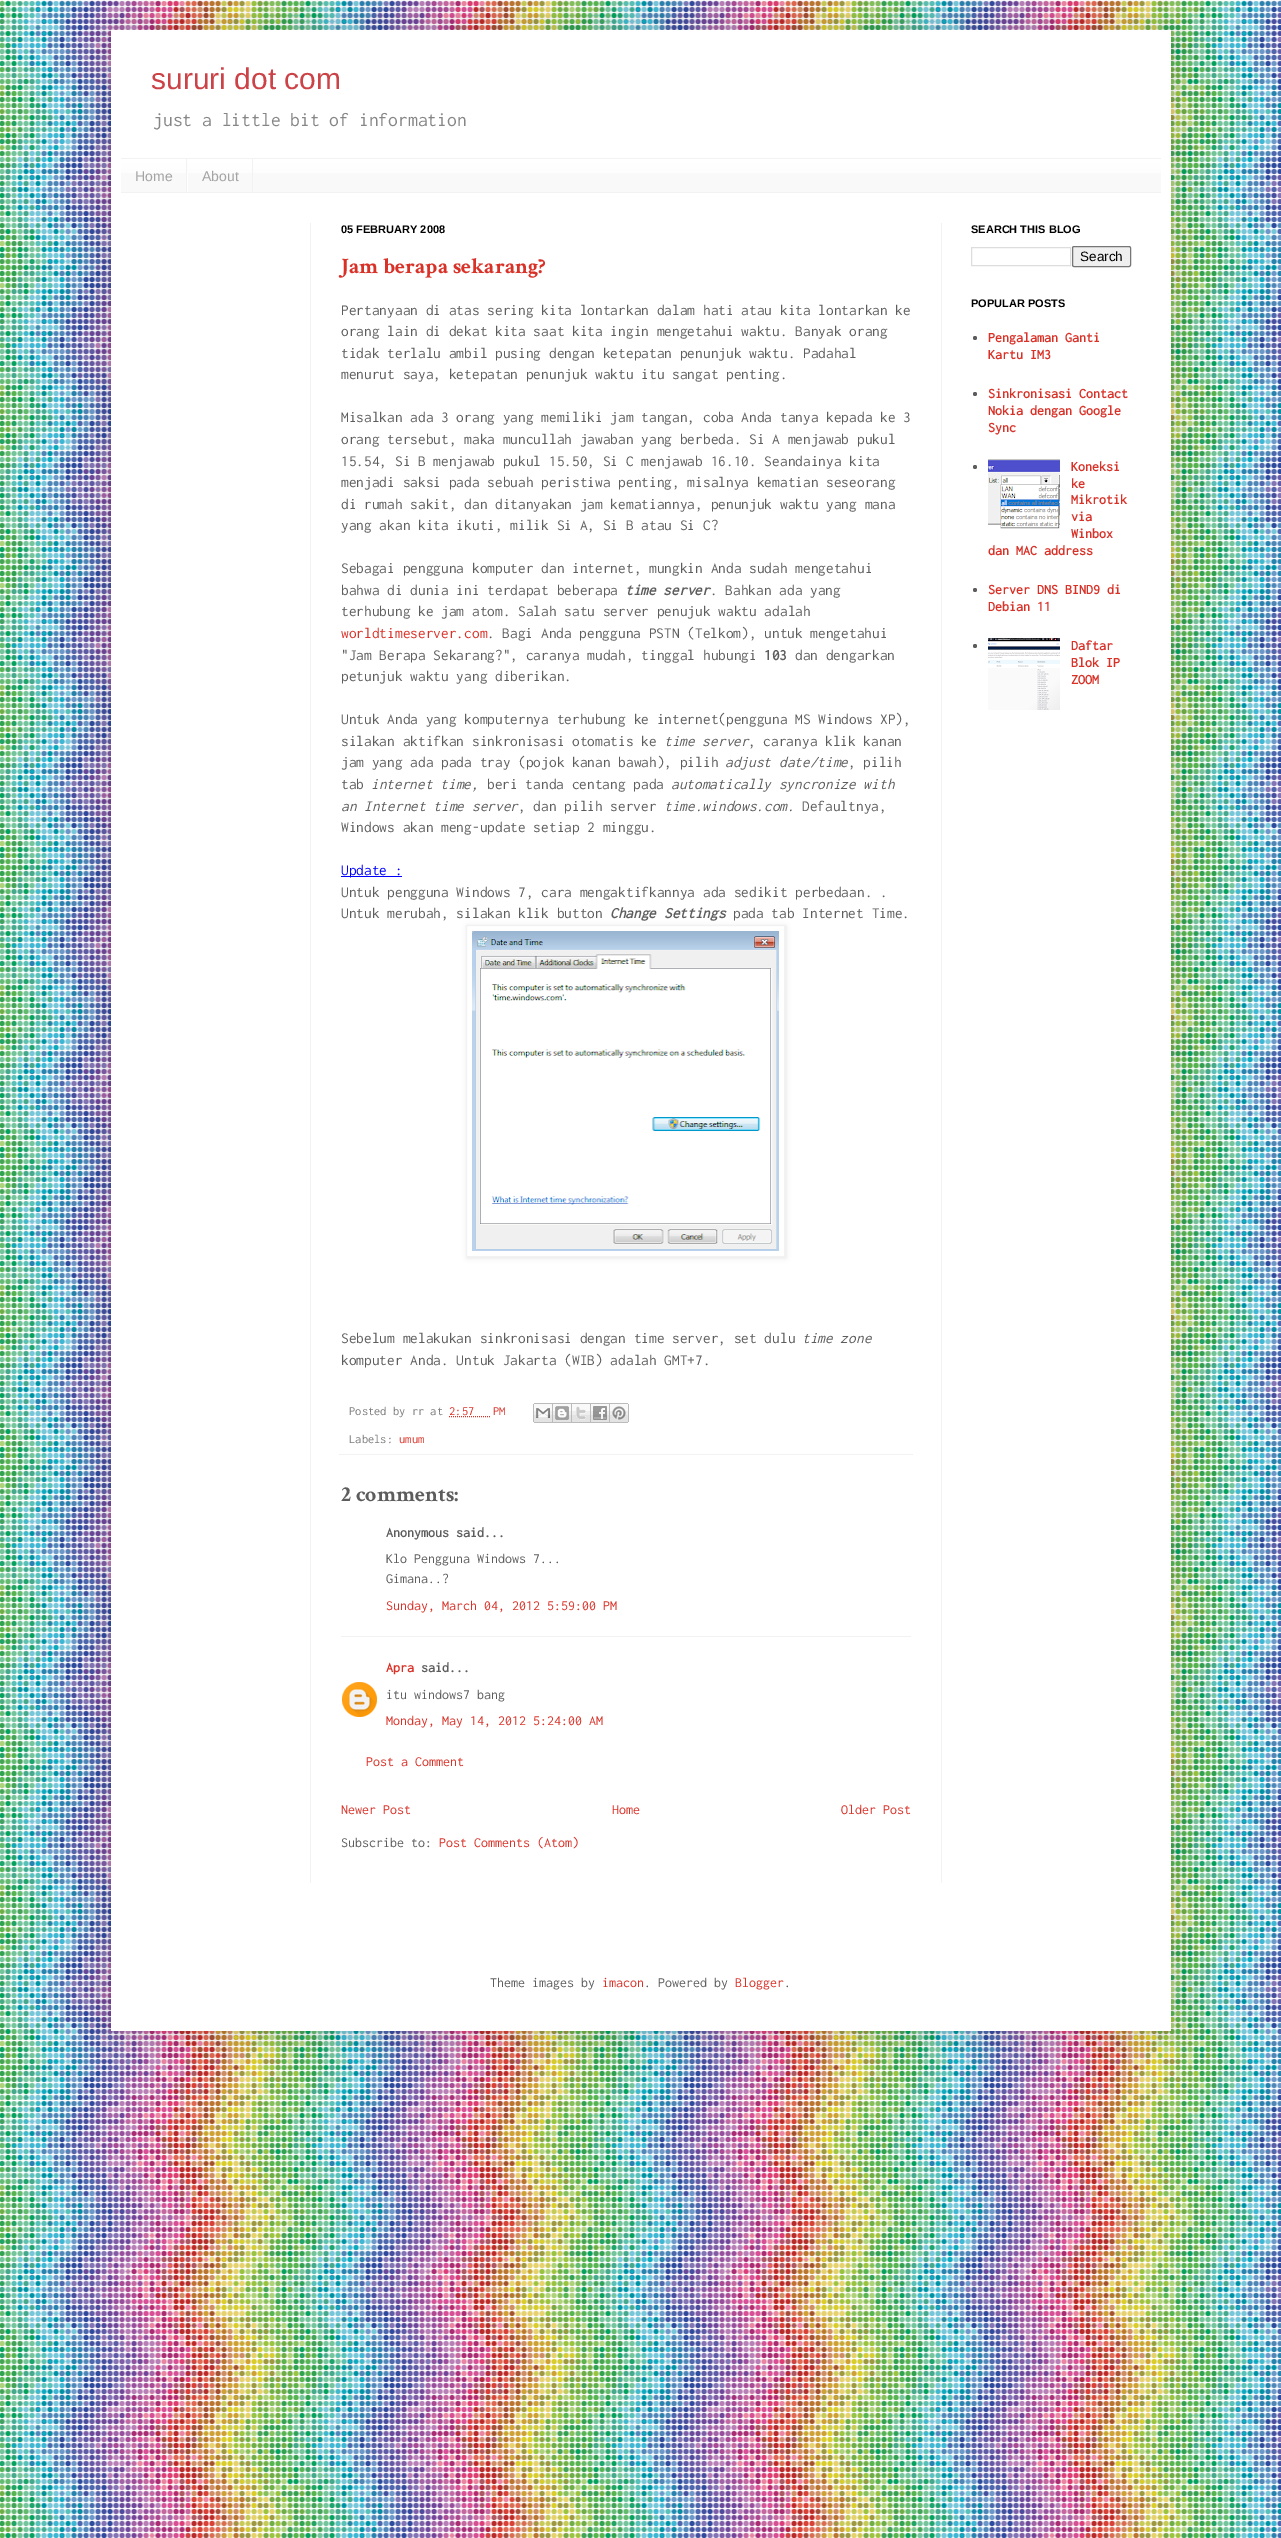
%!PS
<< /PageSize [1281 2538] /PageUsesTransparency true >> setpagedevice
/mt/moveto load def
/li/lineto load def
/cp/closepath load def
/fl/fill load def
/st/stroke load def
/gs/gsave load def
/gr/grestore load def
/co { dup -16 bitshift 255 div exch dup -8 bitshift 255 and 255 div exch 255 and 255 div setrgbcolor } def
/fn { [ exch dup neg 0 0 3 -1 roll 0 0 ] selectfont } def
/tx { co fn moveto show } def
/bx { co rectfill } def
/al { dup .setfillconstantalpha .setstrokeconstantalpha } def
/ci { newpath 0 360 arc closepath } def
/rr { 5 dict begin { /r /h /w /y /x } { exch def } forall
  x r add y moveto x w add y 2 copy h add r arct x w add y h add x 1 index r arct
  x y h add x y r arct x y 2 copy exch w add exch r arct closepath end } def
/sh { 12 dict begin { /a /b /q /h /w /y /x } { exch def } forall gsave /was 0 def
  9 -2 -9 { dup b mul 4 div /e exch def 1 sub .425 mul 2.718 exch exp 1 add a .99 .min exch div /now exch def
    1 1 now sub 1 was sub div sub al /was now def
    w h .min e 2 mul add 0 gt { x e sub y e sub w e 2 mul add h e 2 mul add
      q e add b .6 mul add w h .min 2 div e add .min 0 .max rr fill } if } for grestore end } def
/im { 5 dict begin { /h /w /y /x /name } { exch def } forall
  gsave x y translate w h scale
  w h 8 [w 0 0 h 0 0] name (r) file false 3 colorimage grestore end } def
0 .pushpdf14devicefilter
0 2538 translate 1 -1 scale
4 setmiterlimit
0 0 1281 2538 16#FFFFFF bx
(media/1.raw) 0 400 1281 2138 im
(media/2.raw) 0 0 1281 400 im
16#000000 co
111 30 1060 2001 0 20 .15 sh
111 30 1060 2001 16#FFFFFF bx
121 160 1040 32 16#F9F9F9 bx
(media/3.raw) 121 159 1040 14 im
121 158 1040 1 16#F2F2F2 bx
121 192 1040 1 16#F2F2F2 bx
186 159 1 33 16#F2F2F2 bx
252 159 1 33 16#F2F2F2 bx
187 173 1 19 16#FFFFFF bx
310 223 1 1660 16#F2F2F2 bx
941 223 1 1660 16#F2F2F2 bx
341 876 61 1 16#0000FF bx
gs
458 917 mt 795 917 li 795 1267 li 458 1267 li cp 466 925 mt 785 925 li 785 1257 li 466 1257 li cp eoclip newpath
16#000000 co
467 926 319 332 0 2.5 .1 sh
gr
16#F2F2F2 co
466.5 925.5 318 331 rectstroke
(media/4.raw) 472 931 307 320 im
339 1454 574 1 16#F2F2F2 bx
16#D83128 co
[1 1] 0 setdash
449 1416.5 mt 490 1416.5 li st
(media/5.raw) 533 1403 20 20 im
(media/6.raw) 553 1403 19 20 im
(media/7.raw) 572 1403 19 20 im
(media/8.raw) 591 1403 19 20 im
(media/9.raw) 610 1403 19 20 im
341 1636 570 1 16#F2F2F2 bx
(media/10.raw) 342 1682 35 35 im
16#DDDDDD co
[] 0 setdash
971.5 247.5 99 18 rectstroke
16#EFEFEF co
1072.5 246.5 58 20 1.5 rr gs fl gr
16#767676 co
st
16#5D5D5D co
975 338 2 ci fl
975 394 2 ci fl
975 467 2 ci fl
(media/11.raw) 988 459 72 70 im
975 590 2 ci fl
975 646 2 ci fl
(media/12.raw) 988 638 72 72 im
(sururi dot com) 151 89 /LiberationSans-Regular 30 16#CB4247 tx
(just a little bit of information) 153 126 /Inconsolata-Regular 19.6 16#868686 tx
(Home) 135 181 /LiberationSans-Regular 14 16#A3A3A3 tx
(About) 202 181 /LiberationSans-Regular 14 16#A3A3A3 tx
(05 FEBRUARY 2008) 341 233 /LiberationSans-Bold 11 16#000000 tx
(Jam berapa sekarang?) 341 273 /CrimsonText-Bold 22 16#D83128 tx
(Pertanyaan di atas sering kita lontarkan dalam hati atau kita lontarkan ke) 341 315 /Inconsolata-Regular 15.4 16#5D5D5D tx
(orang lain di dekat kita saat kita ingin mengetahui waktu. Banyak orang) 341 336 /Inconsolata-Regular 15.4 16#5D5D5D tx
(tidak terlalu ambil pusing dengan ketepatan penunjuk waktu. Padahal) 341 358 /Inconsolata-Regular 15.4 16#5D5D5D tx
(menurut saya, ketepatan penunjuk waktu itu sangat penting.) 341 379 /Inconsolata-Regular 15.4 16#5D5D5D tx
(Misalkan ada 3 orang yang memiliki jam tangan, coba Anda tanya kepada ke 3) 341 422 /Inconsolata-Regular 15.4 16#5D5D5D tx
(orang tersebut, maka muncullah jawaban yang berbeda. Si A menjawab pukul) 341 444 /Inconsolata-Regular 15.4 16#5D5D5D tx
(15.54, Si B menjawab pukul 15.50, Si C menjawab 16.10. Seandainya kita) 341 466 /Inconsolata-Regular 15.4 16#5D5D5D tx
(menjadi saksi pada sebuah peristiwa penting, misalnya kematian seseorang) 341 487 /Inconsolata-Regular 15.4 16#5D5D5D tx
(di rumah sakit, dan ditanyakan jam kematiannya, penunjuk waktu yang mana) 341 509 /Inconsolata-Regular 15.4 16#5D5D5D tx
(yang akan kita ikuti, milik Si A, Si B atau Si C?) 341 530 /Inconsolata-Regular 15.4 16#5D5D5D tx
(Sebagai pengguna komputer dan internet, mungkin Anda sudah mengetahui) 341 573 /Inconsolata-Regular 15.4 16#5D5D5D tx
(bahwa di dunia ini terdapat beberapa) 341 595 /Inconsolata-Regular 15.4 16#5D5D5D tx
(time server) 625 595 /Inconsolata-BoldItalic 15.4 16#5D5D5D tx
(. Bahkan ada yang) 710 595 /Inconsolata-Regular 15.4 16#5D5D5D tx
(terhubung ke jam atom. Salah satu server penujuk waktu adalah) 341 616 /Inconsolata-Regular 15.4 16#5D5D5D tx
(worldtimeserver.com) 341 638 /Inconsolata-Regular 15.4 16#D83128 tx
(. Bagi Anda pengguna PSTN \(Telkom\), untuk mengetahui) 487 638 /Inconsolata-Regular 15.4 16#5D5D5D tx
("Jam Berapa Sekarang?", caranya mudah, tinggal hubungi) 341 660 /Inconsolata-Regular 15.4 16#5D5D5D tx
(103) 764 660 /Inconsolata-Bold 15.4 16#5D5D5D tx
(dan dengarkan) 795 660 /Inconsolata-Regular 15.4 16#5D5D5D tx
(petunjuk waktu yang diberikan.) 341 681 /Inconsolata-Regular 15.4 16#5D5D5D tx
(Untuk Anda yang komputernya terhubung ke internet\(pengguna MS Windows XP\),) 341 724 /Inconsolata-Regular 15.4 16#5D5D5D tx
(silakan aktifkan sinkronisasi otomatis ke) 341 746 /Inconsolata-Regular 15.4 16#5D5D5D tx
(time server) 664 746 /Inconsolata-Italic 15.4 16#5D5D5D tx
(, caranya klik kanan) 748 746 /Inconsolata-Regular 15.4 16#5D5D5D tx
(jam yang ada pada tray \(pojok kanan bawah\), pilih) 341 767 /Inconsolata-Regular 15.4 16#5D5D5D tx
(adjust date/time) 725 767 /Inconsolata-Italic 15.4 16#5D5D5D tx
(, pilih) 848 767 /Inconsolata-Regular 15.4 16#5D5D5D tx
(tab) 341 789 /Inconsolata-Regular 15.4 16#5D5D5D tx
(internet time,) 371 789 /Inconsolata-Italic 15.4 16#5D5D5D tx
(beri tanda centang pada) 487 789 /Inconsolata-Regular 15.4 16#5D5D5D tx
(automatically syncronize with) 671 789 /Inconsolata-Italic 15.4 16#5D5D5D tx
(an Internet time server) 341 811 /Inconsolata-Italic 15.4 16#5D5D5D tx
(, dan pilih server) 518 811 /Inconsolata-Regular 15.4 16#5D5D5D tx
(time.windows.com.) 664 811 /Inconsolata-Italic 15.4 16#5D5D5D tx
(Defaultnya,) 802 811 /Inconsolata-Regular 15.4 16#5D5D5D tx
(Windows akan meng-update setiap 2 minggu.) 341 832 /Inconsolata-Regular 15.4 16#5D5D5D tx
(Update :) 341 875 /Inconsolata-Regular 15.4 16#0000FF tx
(Untuk pengguna Windows 7, cara mengaktifkannya ada sedikit perbedaan. .) 341 897 /Inconsolata-Regular 15.4 16#5D5D5D tx
(Untuk merubah, silakan klik button) 341 918 /Inconsolata-Regular 15.4 16#5D5D5D tx
(Change Settings) 610 918 /Inconsolata-BoldItalic 15.4 16#5D5D5D tx
(pada tab Internet Time.) 733 918 /Inconsolata-Regular 15.4 16#5D5D5D tx
(Sebelum melakukan sinkronisasi dengan time server, set dulu) 341 1343 /Inconsolata-Regular 15.4 16#5D5D5D tx
(time zone) 802 1343 /Inconsolata-Italic 15.4 16#5D5D5D tx
(komputer Anda. Untuk Jakarta \(WIB\) adalah GMT+7.) 341 1365 /Inconsolata-Regular 15.4 16#5D5D5D tx
(Posted by rr at) 349 1415 /Inconsolata-Regular 12.5 16#7A7A7A tx
(2:57 PM) 449 1415 /Inconsolata-Regular 12.5 16#D83128 tx
(Labels:) 349 1443 /Inconsolata-Regular 12.5 16#7A7A7A tx
(umum) 399 1443 /Inconsolata-Regular 12.5 16#D83128 tx
(2 comments:) 341 1501 /CrimsonText-Bold 22 16#5D5D5D tx
(Anonymous said...) 386 1537 /Inconsolata-Bold 14 16#5D5D5D tx
(Klo Pengguna Windows 7...) 386 1563 /Inconsolata-Regular 14 16#5D5D5D tx
(Gimana..?) 386 1583 /Inconsolata-Regular 14 16#5D5D5D tx
(Sunday, March 04, 2012 5:59:00 PM) 386 1610 /Inconsolata-Regular 14 16#D83128 tx
(Apra) 386 1672 /Inconsolata-Bold 14 16#D83128 tx
(said...) 421 1672 /Inconsolata-Bold 14 16#5D5D5D tx
(itu windows7 bang) 386 1699 /Inconsolata-Regular 14 16#5D5D5D tx
(Monday, May 14, 2012 5:24:00 AM) 386 1725 /Inconsolata-Regular 14 16#D83128 tx
(Post a Comment) 366 1766 /Inconsolata-Regular 14 16#D83128 tx
(Newer Post) 341 1814 /Inconsolata-Regular 14 16#D83128 tx
(Home) 612 1814 /Inconsolata-Regular 14 16#D83128 tx
(Older Post) 841 1814 /Inconsolata-Regular 14 16#D83128 tx
(Subscribe to:) 341 1847 /Inconsolata-Regular 14 16#5D5D5D tx
(Post Comments \(Atom\)) 439 1847 /Inconsolata-Regular 14 16#D83128 tx
(SEARCH THIS BLOG) 971 233 /LiberationSans-Bold 11 16#000000 tx
(Search) 1080 261 /LiberationSans-Regular 13.5 16#000000 tx
(POPULAR POSTS) 971 307 /LiberationSans-Bold 11 16#000000 tx
(Pengalaman Ganti) 988 342 /Inconsolata-Bold 14 16#D83128 tx
(Kartu IM3) 988 359 /Inconsolata-Bold 14 16#D83128 tx
(Sinkronisasi Contact) 988 398 /Inconsolata-Bold 14 16#D83128 tx
(Nokia dengan Google) 988 415 /Inconsolata-Bold 14 16#D83128 tx
(Sync) 988 432 /Inconsolata-Bold 14 16#D83128 tx
(Koneksi) 1071 471 /Inconsolata-Bold 14 16#D83128 tx
(ke) 1071 488 /Inconsolata-Bold 14 16#D83128 tx
(Mikrotik) 1071 504 /Inconsolata-Bold 14 16#D83128 tx
(via) 1071 521 /Inconsolata-Bold 14 16#D83128 tx
(Winbox) 1071 538 /Inconsolata-Bold 14 16#D83128 tx
(dan MAC address) 988 555 /Inconsolata-Bold 14 16#D83128 tx
(Server DNS BIND9 di) 988 594 /Inconsolata-Bold 14 16#D83128 tx
(Debian 11) 988 611 /Inconsolata-Bold 14 16#D83128 tx
(Daftar) 1071 650 /Inconsolata-Bold 14 16#D83128 tx
(Blok IP) 1071 667 /Inconsolata-Bold 14 16#D83128 tx
(ZOOM) 1071 684 /Inconsolata-Bold 14 16#D83128 tx
(Theme images by) 490 1987 /Inconsolata-Regular 14 16#5D5D5D tx
(imacon) 602 1987 /Inconsolata-Regular 14 16#D83128 tx
(. Powered by) 644 1987 /Inconsolata-Regular 14 16#5D5D5D tx
(Blogger) 735 1987 /Inconsolata-Regular 14 16#D83128 tx
(.) 784 1987 /Inconsolata-Regular 14 16#5D5D5D tx
.poppdf14devicefilter showpage
